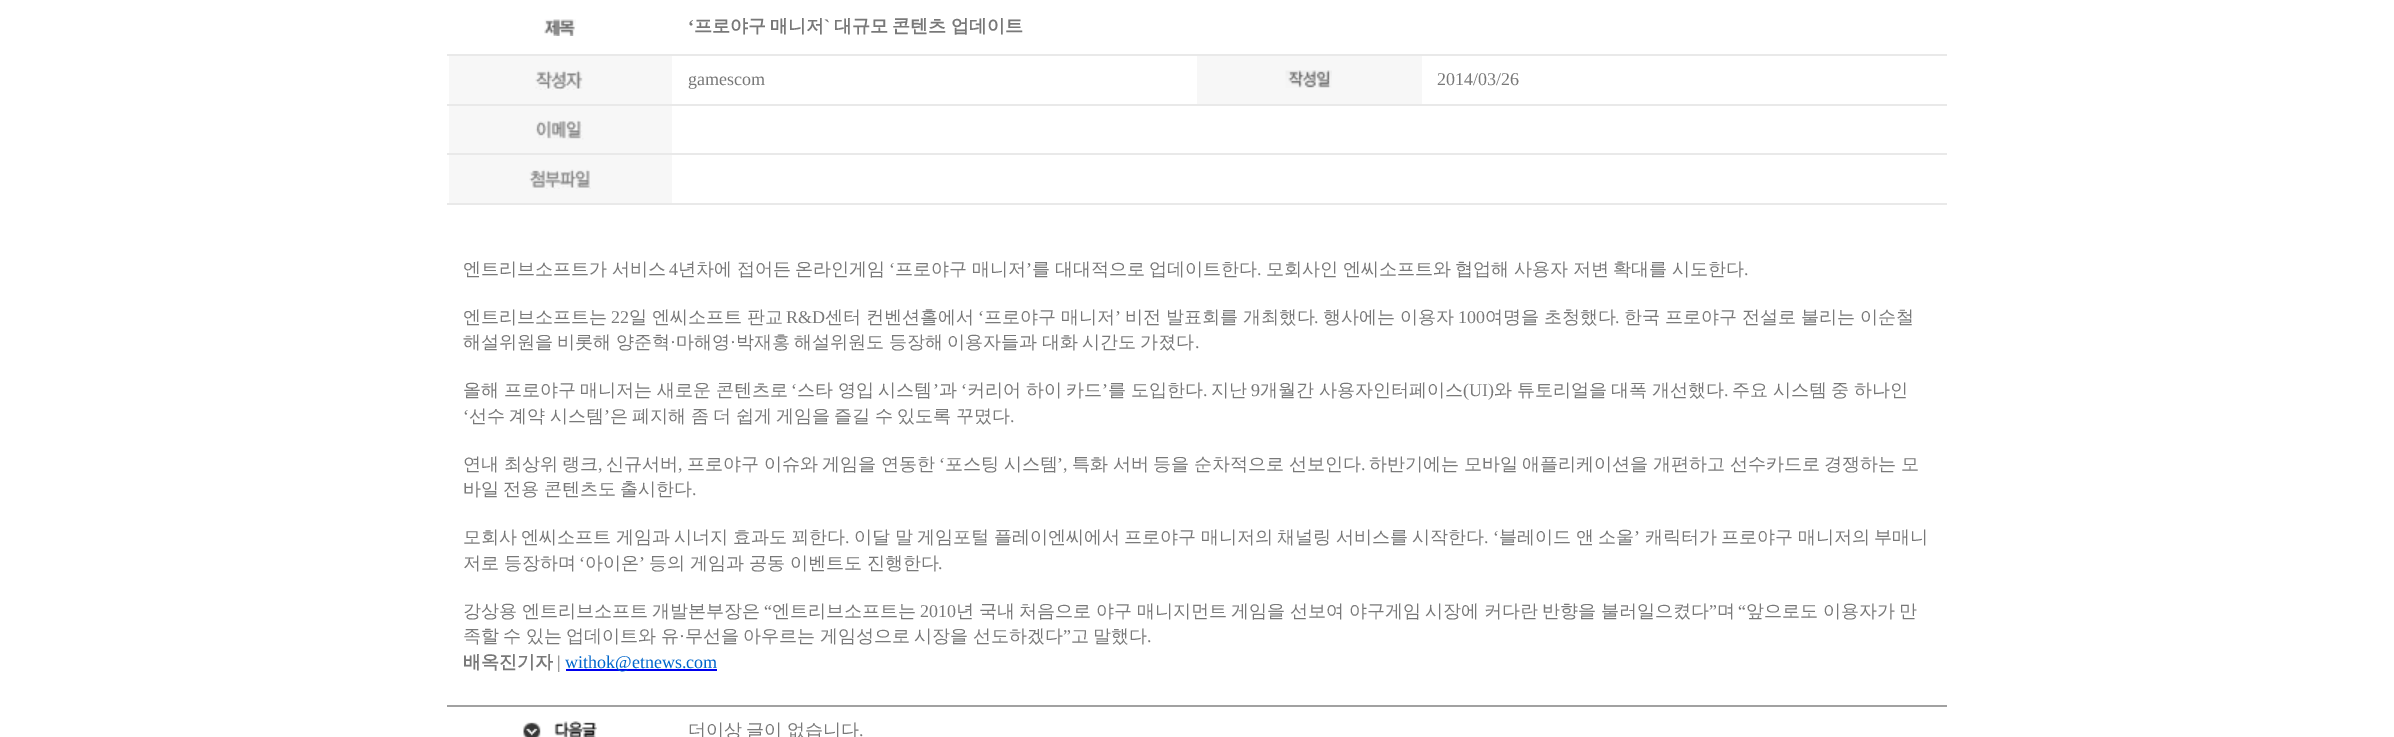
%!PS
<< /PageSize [2394 737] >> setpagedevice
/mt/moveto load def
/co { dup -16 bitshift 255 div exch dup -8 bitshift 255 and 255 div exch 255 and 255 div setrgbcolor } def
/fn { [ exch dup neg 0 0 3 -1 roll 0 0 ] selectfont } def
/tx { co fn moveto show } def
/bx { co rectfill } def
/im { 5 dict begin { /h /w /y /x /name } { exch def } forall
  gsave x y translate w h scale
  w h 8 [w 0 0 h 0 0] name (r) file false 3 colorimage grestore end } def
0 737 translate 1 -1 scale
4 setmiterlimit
0 0 2394 737 16#FFFFFF bx
(media/1.raw) 544 19 32 17 im
447 54 1500 2 16#E9E9E9 bx
449 56 223 48 16#F7F7F7 bx
(media/2.raw) 535 70 48 20 im
1197 56 225 48 16#F7F7F7 bx
(media/3.raw) 1285 70 47 18 im
447 104 1500 2 16#E9E9E9 bx
449 106 223 47 16#F7F7F7 bx
(media/4.raw) 535 120 49 20 im
447 153 1500 2 16#E9E9E9 bx
449 155 223 48 16#F7F7F7 bx
(media/5.raw) 529 169 62 20 im
447 203 1500 2 16#E9E9E9 bx
447 705 1500 2 16#A1A1A1 bx
566 669 151 2 16#0000EE bx
(media/6.raw) 523 721 74 16 im
(‘) 688 32 /LiberationSerif-Bold 18 16#787878 tx
/WenQuanYiZenHei-Bold 18 fn
694 32 mt -1 0 32 (프로야구 매니저) widthshow
(`) 824 32 /LiberationSerif-Bold 18 16#787878 tx
/WenQuanYiZenHei-Bold 18 fn
834 32 mt -1 0 32 (대규모 콘텐츠 업데이트) widthshow
(gamescom) 688 85 /LiberationSerif-Regular 18 16#787878 tx
(2014/03/26) 1437 85 /LiberationSerif-Regular 18 16#787878 tx
/WenQuanYiZenHei-Medium 18 fn
463 275 mt -.75 0 32 (엔트리브소프트가 서비스) widthshow
(4) 669 275 /LiberationSerif-Regular 18 16#787878 tx
/WenQuanYiZenHei-Medium 18 fn
678 275 mt -.75 0 32 (년차에 접어든 온라인게임) widthshow
(‘) 889 275 /LiberationSerif-Regular 18 16#787878 tx
/WenQuanYiZenHei-Medium 18 fn
895 275 mt -.75 0 32 (프로야구 매니저) widthshow
(’) 1026 275 /LiberationSerif-Regular 18 16#787878 tx
/WenQuanYiZenHei-Medium 18 fn
1032 275 mt -.75 0 32 (를 대대적으로 업데이트한다) widthshow
1266 275 mt -.75 0 32 (모회사인 엔씨소프트와 협업해 사용자 저변 확대를 시도한다) widthshow
(.) 1257 275 /LiberationSerif-Regular 18 16#787878 tx
(.) 1744 275 /LiberationSerif-Regular 18 16#787878 tx
(엔트리브소프트는) 463 323 /WenQuanYiZenHei-Medium 18 16#787878 tx
(22) 611 323 /LiberationSerif-Regular 18 16#787878 tx
/WenQuanYiZenHei-Medium 18 fn
629 323 mt -.5 0 32 (일 엔씨소프트 판교) widthshow
(R&D) 786 323 /LiberationSerif-Regular 18 16#787878 tx
/WenQuanYiZenHei-Medium 18 fn
825 323 mt -.5 0 32 (센터 컨벤션홀에서) widthshow
(‘) 978 323 /LiberationSerif-Regular 18 16#787878 tx
/WenQuanYiZenHei-Medium 18 fn
984 323 mt -.5 0 32 (프로야구 매니저) widthshow
(’) 1115 323 /LiberationSerif-Regular 18 16#787878 tx
/WenQuanYiZenHei-Medium 18 fn
1125 323 mt -.5 0 32 (비전 발표회를 개최했다) widthshow
(.) 1314 323 /LiberationSerif-Regular 18 16#787878 tx
/WenQuanYiZenHei-Medium 18 fn
1323 323 mt -.5 0 32 (행사에는 이용자) widthshow
(100) 1458 323 /LiberationSerif-Regular 18 16#787878 tx
/WenQuanYiZenHei-Medium 18 fn
1485 323 mt -.5 0 32 (여명을 초청했다) widthshow
(.) 1615 323 /LiberationSerif-Regular 18 16#787878 tx
/WenQuanYiZenHei-Medium 18 fn
1624 323 mt -.5 0 32 (한국 프로야구 전설로 불리는 이순철) widthshow
463 348 mt -1 0 32 (해설위원을 비롯해 양준혁) widthshow
(·) 670 348 /LiberationSerif-Regular 18 16#787878 tx
(마해영) 676 348 /WenQuanYiZenHei-Medium 18 16#787878 tx
(·) 730 348 /LiberationSerif-Regular 18 16#787878 tx
/WenQuanYiZenHei-Medium 18 fn
736 348 mt -1 0 32 (박재홍 해설위원도 등장해 이용자들과 대화 시간도 가졌다) widthshow
(.) 1195 348 /LiberationSerif-Regular 18 16#787878 tx
/WenQuanYiZenHei-Medium 18 fn
463 396 mt -.75 0 32 (올해 프로야구 매니저는 새로운 콘텐츠로) widthshow
(‘) 791 396 /LiberationSerif-Regular 18 16#787878 tx
/WenQuanYiZenHei-Medium 18 fn
797 396 mt -.75 0 32 (스타 영입 시스템) widthshow
(’) 933 396 /LiberationSerif-Regular 18 16#787878 tx
(과) 939 396 /WenQuanYiZenHei-Medium 18 16#787878 tx
(‘) 961 396 /LiberationSerif-Regular 18 16#787878 tx
/WenQuanYiZenHei-Medium 18 fn
967 396 mt -.75 0 32 (커리어 하이 카드) widthshow
(’) 1102 396 /LiberationSerif-Regular 18 16#787878 tx
/WenQuanYiZenHei-Medium 18 fn
1108 396 mt -.75 0 32 (를 도입한다) widthshow
(.) 1203 396 /LiberationSerif-Regular 18 16#787878 tx
(지난) 1211 396 /WenQuanYiZenHei-Medium 18 16#787878 tx
(9) 1251 396 /LiberationSerif-Regular 18 16#787878 tx
/WenQuanYiZenHei-Medium 18 fn
1260 396 mt -.75 0 32 (개월간 사용자인터페이스) widthshow
(\(UI\)) 1463 396 /LiberationSerif-Regular 18 16#787878 tx
/WenQuanYiZenHei-Medium 18 fn
1494 396 mt -.75 0 32 (와 튜토리얼을 대폭 개선했다) widthshow
(.) 1724 396 /LiberationSerif-Regular 18 16#787878 tx
/WenQuanYiZenHei-Medium 18 fn
1732 396 mt -.75 0 32 (주요 시스템 중 하나인) widthshow
(‘) 463 422 /LiberationSerif-Regular 18 16#787878 tx
/WenQuanYiZenHei-Medium 18 fn
469 422 mt -1 0 32 (선수 계약 시스템) widthshow
(’) 604 422 /LiberationSerif-Regular 18 16#787878 tx
/WenQuanYiZenHei-Medium 18 fn
610 422 mt -1 0 32 (은 폐지해 좀 더 쉽게 게임을 즐길 수 있도록 꾸몄다) widthshow
(.) 1010 422 /LiberationSerif-Regular 18 16#787878 tx
/WenQuanYiZenHei-Medium 18 fn
463 470 mt -.75 0 32 (연내 최상위 랭크) widthshow
(,) 598 470 /LiberationSerif-Regular 18 16#787878 tx
(신규서버) 606 470 /WenQuanYiZenHei-Medium 18 16#787878 tx
(,) 678 470 /LiberationSerif-Regular 18 16#787878 tx
/WenQuanYiZenHei-Medium 18 fn
687 470 mt -.75 0 32 (프로야구 이슈와 게임을 연동한) widthshow
(‘) 939 470 /LiberationSerif-Regular 18 16#787878 tx
/WenQuanYiZenHei-Medium 18 fn
945 470 mt -.75 0 32 (포스팅 시스템) widthshow
(’,) 1057 470 /LiberationSerif-Regular 18 16#787878 tx
/WenQuanYiZenHei-Medium 18 fn
1072 470 mt -.75 0 32 (특화 서버 등을 순차적으로 선보인다) widthshow
(.) 1361 470 /LiberationSerif-Regular 18 16#787878 tx
/WenQuanYiZenHei-Medium 18 fn
1369 470 mt -.75 0 32 (하반기에는 모바일 애플리케이션을 개편하고 선수카드로 경쟁하는 모) widthshow
463 495 mt -1 0 32 (바일 전용 콘텐츠도 출시한다) widthshow
(.) 692 495 /LiberationSerif-Regular 18 16#787878 tx
(모회사) 463 543 /WenQuanYiZenHei-Medium 18 16#787878 tx
(엔씨소프트) 521 543 /WenQuanYiZenHei-Medium 18 16#787878 tx
(게임과) 616 543 /WenQuanYiZenHei-Medium 18 16#787878 tx
(시너지) 674 543 /WenQuanYiZenHei-Medium 18 16#787878 tx
(효과도) 733 543 /WenQuanYiZenHei-Medium 18 16#787878 tx
(꾀한다) 791 543 /WenQuanYiZenHei-Medium 18 16#787878 tx
(이달) 854 543 /WenQuanYiZenHei-Medium 18 16#787878 tx
(말) 895 543 /WenQuanYiZenHei-Medium 18 16#787878 tx
(게임포털) 917 543 /WenQuanYiZenHei-Medium 18 16#787878 tx
(플레이엔씨에서) 994 543 /WenQuanYiZenHei-Medium 18 16#787878 tx
(프로야구) 1124 543 /WenQuanYiZenHei-Medium 18 16#787878 tx
(매니저의) 1201 543 /WenQuanYiZenHei-Medium 18 16#787878 tx
(채널링) 1277 543 /WenQuanYiZenHei-Medium 18 16#787878 tx
(서비스를) 1336 543 /WenQuanYiZenHei-Medium 18 16#787878 tx
(시작한다) 1412 543 /WenQuanYiZenHei-Medium 18 16#787878 tx
(. ‘) 1484 543 /LiberationSerif-Regular 18 16#787878 tx
(블레이드) 1499 543 /WenQuanYiZenHei-Medium 18 16#787878 tx
(앤) 1576 543 /WenQuanYiZenHei-Medium 18 16#787878 tx
(소울) 1598 543 /WenQuanYiZenHei-Medium 18 16#787878 tx
(’) 1634 543 /LiberationSerif-Regular 18 16#787878 tx
(캐릭터가) 1645 543 /WenQuanYiZenHei-Medium 18 16#787878 tx
(프로야구) 1721 543 /WenQuanYiZenHei-Medium 18 16#787878 tx
(매니저의) 1798 543 /WenQuanYiZenHei-Medium 18 16#787878 tx
(부매니) 1874 543 /WenQuanYiZenHei-Medium 18 16#787878 tx
(.) 845 543 /LiberationSerif-Regular 18 16#787878 tx
/WenQuanYiZenHei-Medium 18 fn
463 569 mt -.5 0 32 (저로 등장하며) widthshow
(‘) 579 569 /LiberationSerif-Regular 18 16#787878 tx
(아이온) 585 569 /WenQuanYiZenHei-Medium 18 16#787878 tx
(’) 639 569 /LiberationSerif-Regular 18 16#787878 tx
/WenQuanYiZenHei-Medium 18 fn
649 569 mt -.5 0 32 (등의 게임과 공동 이벤트도 진행한다) widthshow
(.) 938 569 /LiberationSerif-Regular 18 16#787878 tx
/WenQuanYiZenHei-Medium 18 fn
463 617 mt -.75 0 32 (강상용 엔트리브소프트 개발본부장은) widthshow
(“) 764 617 /LiberationSerif-Regular 18 16#787878 tx
(엔트리브소프트는) 772 617 /WenQuanYiZenHei-Medium 18 16#787878 tx
(2010) 920 617 /LiberationSerif-Regular 18 16#787878 tx
/WenQuanYiZenHei-Medium 18 fn
956 617 mt -.75 0 32 (년 국내 처음으로 야구 매니지먼트 게임을 선보여 야구게임 시장에 커다란 반향을 불러일으켰다) widthshow
(”) 1709 617 /LiberationSerif-Regular 18 16#787878 tx
(며) 1717 617 /WenQuanYiZenHei-Medium 18 16#787878 tx
(“) 1738 617 /LiberationSerif-Regular 18 16#787878 tx
/WenQuanYiZenHei-Medium 18 fn
1746 617 mt -.75 0 32 (앞으로도 이용자가 만) widthshow
463 642 mt -1 0 32 (족할 수 있는 업데이트와 유) widthshow
685 642 mt -1 0 32 (무선을 아우르는 게임성으로 시장을 선도하겠다) widthshow
(”) 1063 642 /LiberationSerif-Regular 18 16#787878 tx
/WenQuanYiZenHei-Medium 18 fn
1071 642 mt -1 0 32 (고 말했다) widthshow
(·) 679 642 /LiberationSerif-Regular 18 16#787878 tx
(.) 1147 642 /LiberationSerif-Regular 18 16#787878 tx
(배옥진기자) 463 668 /WenQuanYiZenHei-Bold 18 16#787878 tx
(|) 557 668 /LiberationSerif-Regular 18 16#787878 tx
(withok@etnews.com) 565 668 /LiberationSerif-Regular 18 16#0066CC tx
/WenQuanYiZenHei-Medium 18 fn
16#787878 co
688 736 mt -1 0 32 (더이상 글이 없습니다) widthshow
(.) 859 736 /LiberationSerif-Regular 18 16#787878 tx
showpage
